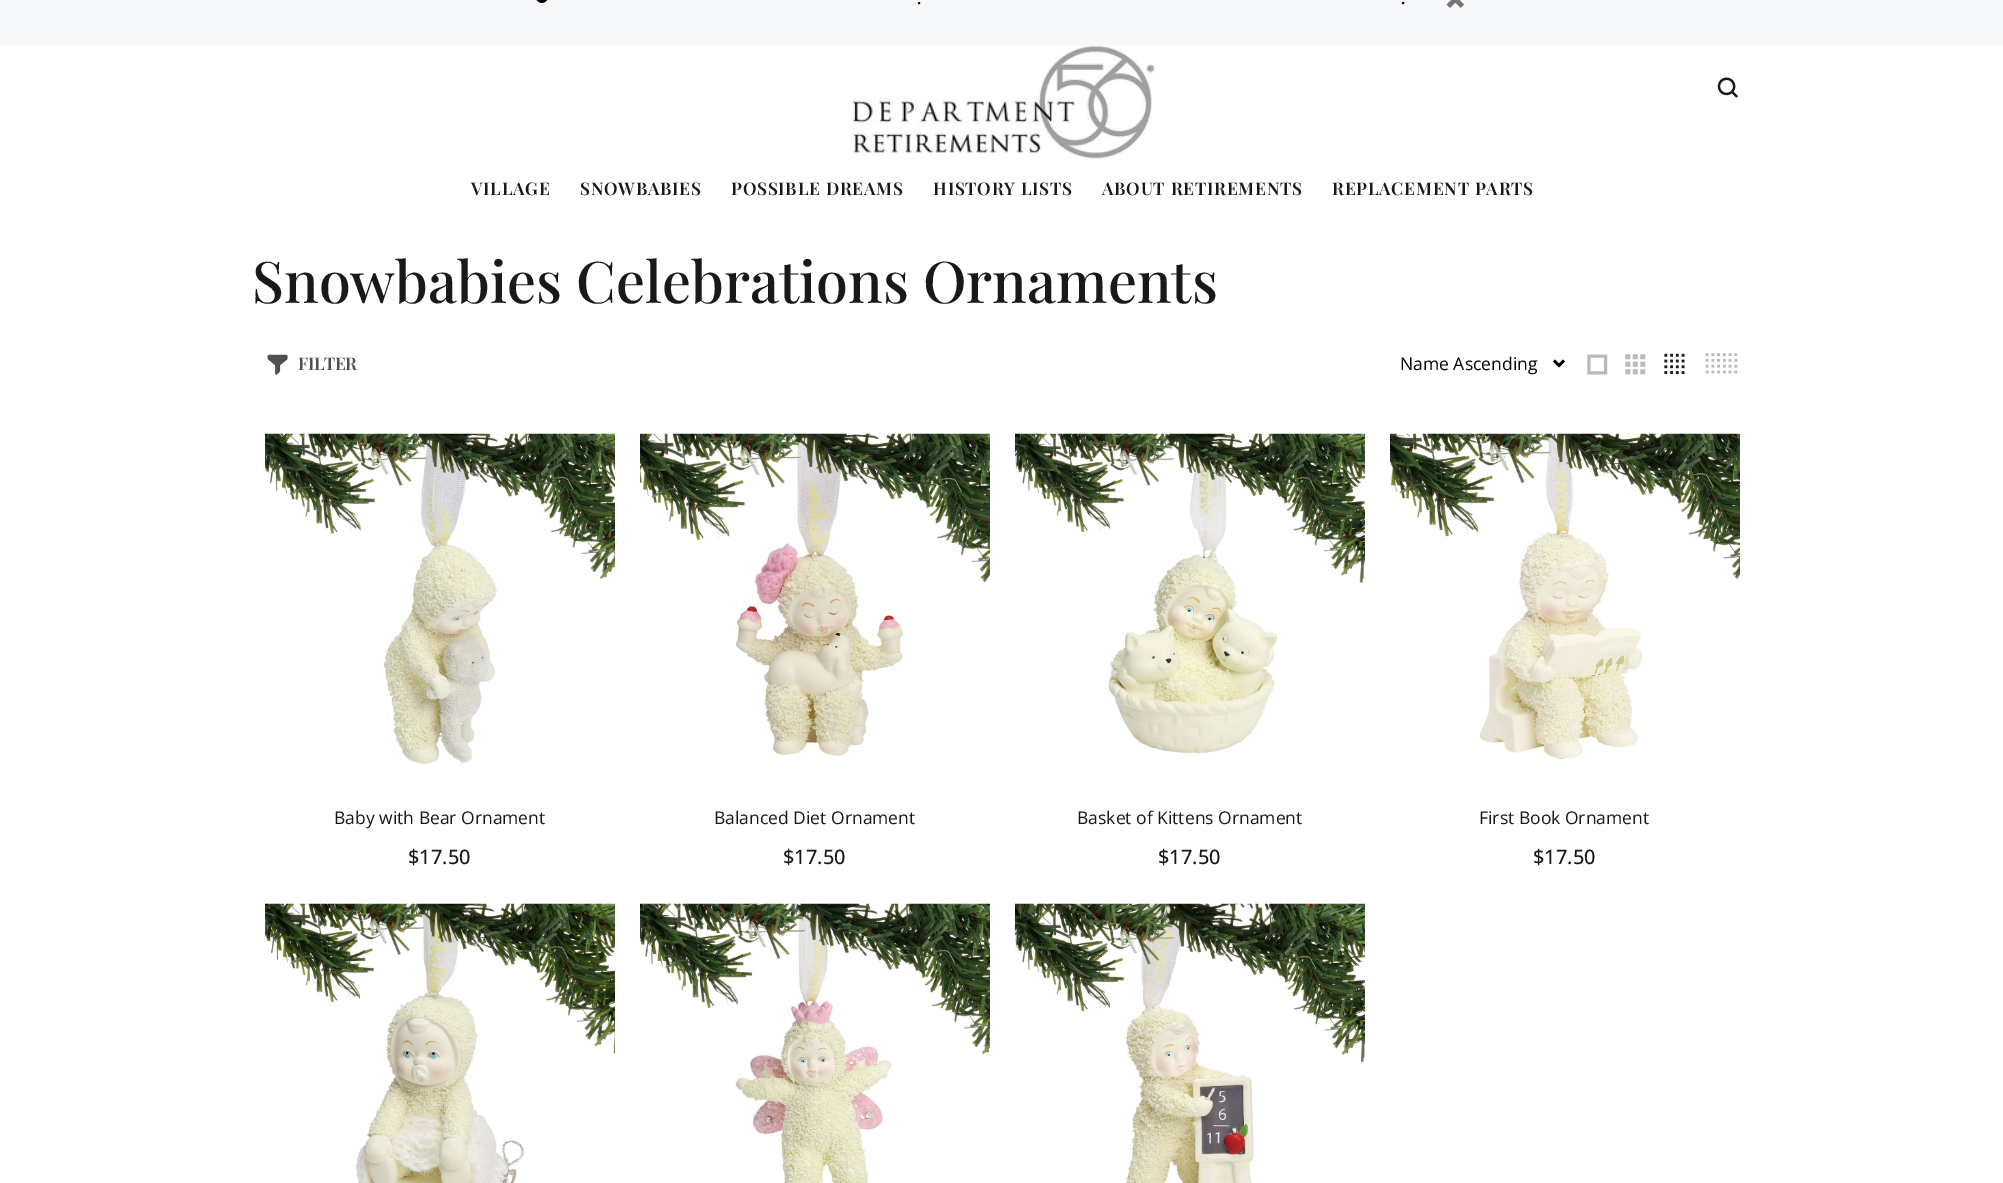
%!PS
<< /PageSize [2003 1183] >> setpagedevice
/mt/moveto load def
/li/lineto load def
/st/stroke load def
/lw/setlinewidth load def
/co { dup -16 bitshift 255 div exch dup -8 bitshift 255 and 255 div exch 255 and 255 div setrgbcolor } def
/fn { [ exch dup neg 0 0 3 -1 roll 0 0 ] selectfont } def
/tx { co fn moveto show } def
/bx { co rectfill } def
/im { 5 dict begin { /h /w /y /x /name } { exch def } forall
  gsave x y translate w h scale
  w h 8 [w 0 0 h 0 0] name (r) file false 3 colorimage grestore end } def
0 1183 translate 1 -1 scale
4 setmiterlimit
0 0 2003 1183 16#FFFFFF bx
0 0 2003 45 16#F7F8FA bx
(media/1.raw) 536 0 12 3 im
(media/2.raw) 1446 0 19 8 im
(media/3.raw) 851 45 305 114 im
(media/4.raw) 1717 77 21 21 im
(media/5.raw) 267 354 21 21 im
16#000000 co
2.5 lw
1554 360.5 mt 1559 365.5 li 1564 360.5 li st
(media/6.raw) 1587 354 21 21 im
(media/7.raw) 1625 354 21 21 im
(media/8.raw) 1664 353 21 21 im
(media/9.raw) 1705 353 33 21 im
(media/10.raw) 265 433 350 332 im
(media/11.raw) 640 433 350 323 im
(media/12.raw) 1015 433 350 321 im
(media/13.raw) 1390 433 350 327 im
(media/14.raw) 265 903 350 280 im
(media/15.raw) 640 903 350 280 im
(media/16.raw) 1015 903 350 280 im
/PlayfairDisplay-SemiBold 16 fn
917 4 mt 1 0 (.) ashow
1401 4 mt 1 0 (.) ashow
/PlayfairDisplay-SemiBold 17.5 fn
16#191919 co
471 195 mt .75 0 (VILLAGE) ashow
580 195 mt .75 0 (SNOWBABIES) ashow
731 195 mt .75 0 (POSSIBLE DREAMS) ashow
933 195 mt .75 0 (HISTORY LISTS) ashow
1102 195 mt .75 0 (ABOUT RETIREMENTS) ashow
1332 195 mt .75 0 (REPLACEMENT PARTS) ashow
(Snowbabies Celebrations Ornaments) 252 303 /PlayfairDisplay-Medium 57.5 16#191919 tx
/PlayfairDisplay-SemiBold 17.5 fn
16#4F4F4F co
298 370 mt -.5 0 (FILTER) ashow
(Name Ascending) 1400 370 /OpenSans-Regular 17.5 16#000000 tx
(Baby with Bear Ornament) 334 824 /OpenSans-Regular 17.5 16#191919 tx
($17.50) 408 864 /OpenSans-Medium 20 16#191919 tx
(Balanced Diet Ornament) 714 824 /OpenSans-Regular 17.5 16#191919 tx
($17.50) 783 864 /OpenSans-Medium 20 16#191919 tx
(Basket of Kittens Ornament) 1077 824 /OpenSans-Regular 17.5 16#191919 tx
($17.50) 1158 864 /OpenSans-Medium 20 16#191919 tx
(First Book Ornament) 1479 824 /OpenSans-Regular 17.5 16#191919 tx
($17.50) 1533 864 /OpenSans-Medium 20 16#191919 tx
showpage
